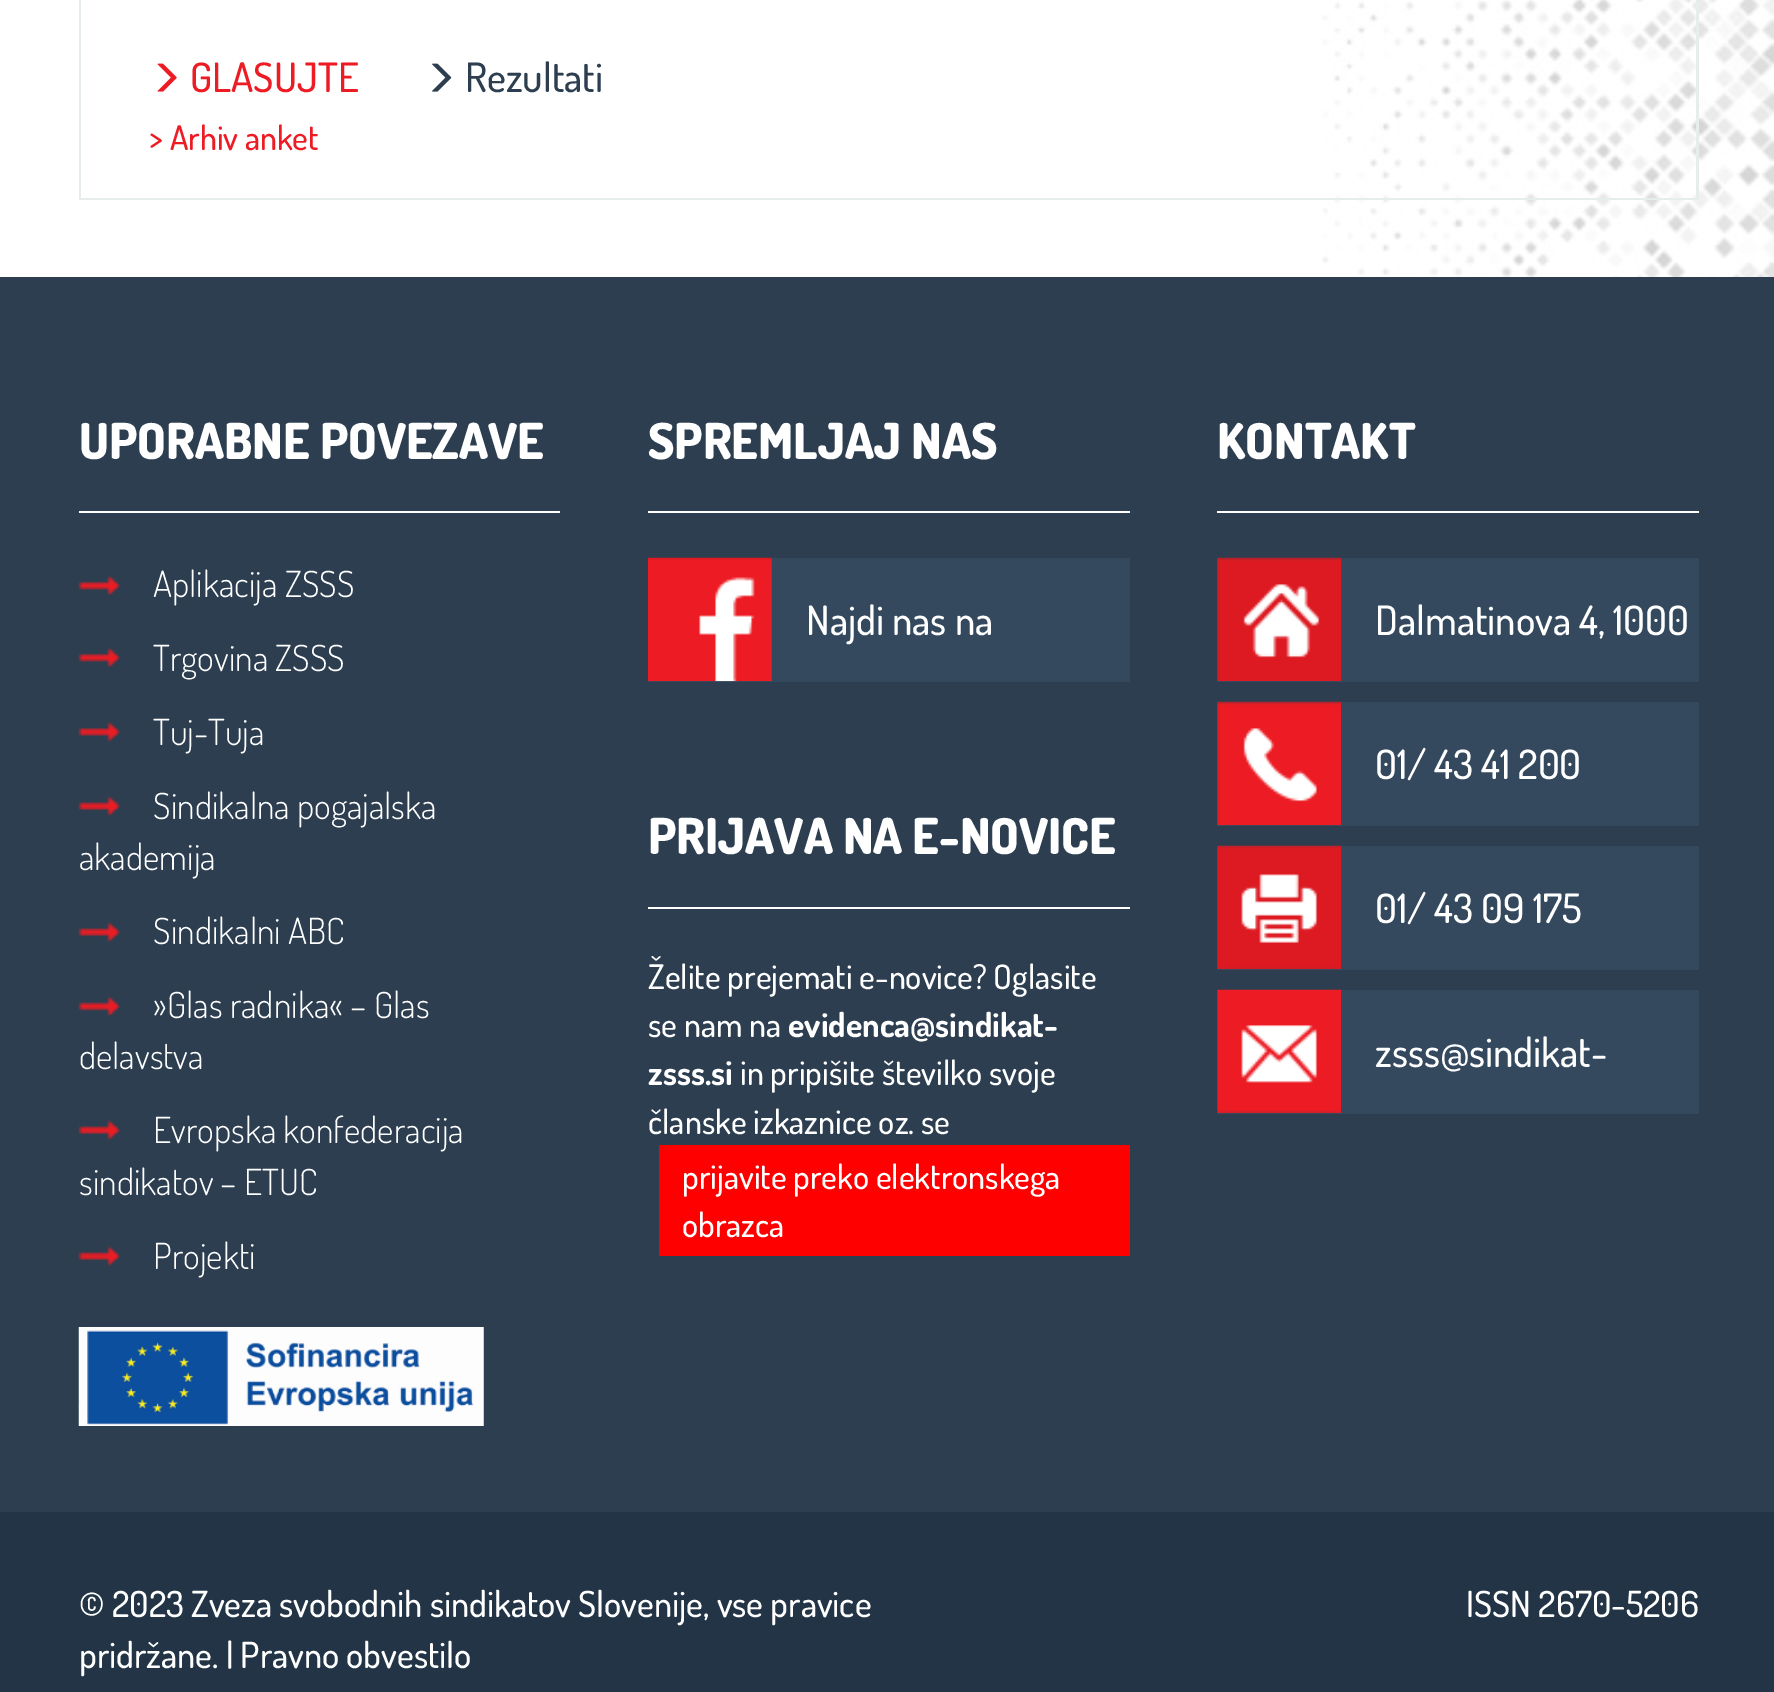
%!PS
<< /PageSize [1774 1692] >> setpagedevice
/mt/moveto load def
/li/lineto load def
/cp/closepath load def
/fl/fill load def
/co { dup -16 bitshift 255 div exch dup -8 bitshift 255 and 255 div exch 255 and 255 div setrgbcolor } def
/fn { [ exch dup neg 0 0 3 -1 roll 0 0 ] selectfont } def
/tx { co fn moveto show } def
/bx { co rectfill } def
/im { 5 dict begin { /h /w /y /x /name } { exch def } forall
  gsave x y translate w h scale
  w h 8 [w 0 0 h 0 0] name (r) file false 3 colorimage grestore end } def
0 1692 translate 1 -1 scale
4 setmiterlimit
0 0 1774 1692 16#FFFFFF bx
(media/1.raw) 1322 0 452 277 im
16#E7ECED co
1699 -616 mt 1699 200 li 1696 198 li 1696 -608 li cp fl
79 198 1620 2 16#E7ECED bx
79 200 mt 79 -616 li 81 -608 li 81 198 li cp fl
(media/2.raw) 157 63 20 29 im
(media/3.raw) 432 63 20 29 im
0 277 1774 1235 16#2C3E50 bx
79 511 481 2 16#FFFFFF bx
(media/4.raw) 78 575 42 21 im
(media/4.raw) 78 647 42 21 im
(media/5.raw) 78 721 42 21 im
(media/6.raw) 78 796 42 21 im
(media/6.raw) 78 922 42 21 im
(media/7.raw) 78 996 42 21 im
(media/6.raw) 78 1120 42 21 im
(media/6.raw) 78 1246 42 21 im
(media/8.raw) 78 1327 406 99 im
648 511 482 2 16#FFFFFF bx
648 558 482 124 16#34495E bx
(media/9.raw) 648 557 124 125 im
648 907 482 2 16#FFFFFF bx
659 1145 471 111 16#FF0000 bx
1217 511 482 2 16#FFFFFF bx
1217 558 482 124 16#34495E bx
(media/10.raw) 1217 557 124 125 im
1217 702 482 124 16#34495E bx
(media/11.raw) 1217 701 124 125 im
1217 846 482 124 16#34495E bx
(media/12.raw) 1217 845 124 125 im
1217 990 482 124 16#34495E bx
(media/13.raw) 1217 989 124 125 im
0 1512 1774 180 16#223445 bx
(GLASUJTE) 190 92 /Dosis-Medium 40.5 16#ED1C24 tx
(Rezultati) 465 92 /Dosis-Medium 40.5 16#2C3E50 tx
(> Arhiv anket) 149 150 /Dosis-Medium 33.75 16#ED1C24 tx
(UPORABNE POVEZAVE) 79 459 /Dosis-ExtraBold 49.5 16#FFFFFF tx
(Aplikacija ZSSS) 153 597 /Dosis-Light 36 16#FFFFFF tx
(Trgovina ZSSS) 153 671 /Dosis-Light 36 16#FFFFFF tx
(Tuj-Tuja) 153 745 /Dosis-Light 36 16#FFFFFF tx
(Sindikalna pogajalska) 153 819 /Dosis-Light 36 16#FFFFFF tx
(akademija) 79 870 /Dosis-Light 36 16#FFFFFF tx
(Sindikalni ABC) 153 944 /Dosis-Light 36 16#FFFFFF tx
(»Glas radnika« – Glas) 153 1018 /Dosis-Light 36 16#FFFFFF tx
(delavstva) 79 1069 /Dosis-Light 36 16#FFFFFF tx
(Evropska konfederacija) 153 1143 /Dosis-Light 36 16#FFFFFF tx
(sindikatov – ETUC) 79 1195 /Dosis-Light 36 16#FFFFFF tx
(Projekti) 153 1269 /Dosis-Light 36 16#FFFFFF tx
(SPREMLJAJ NAS) 648 459 /Dosis-ExtraBold 49.5 16#FFFFFF tx
(Najdi nas na) 806 635 /Dosis-Medium 40.5 16#FFFFFF tx
(PRIJAVA NA E-NOVICE) 648 854 /Dosis-ExtraBold 49.5 16#FFFFFF tx
(Želite prejemati e-novice? Oglasite) 648 989 /Dosis-Medium 33.75 16#FFFFFF tx
(se nam na) 648 1037 /Dosis-Medium 33.75 16#FFFFFF tx
(evidenca@sindikat-) 788 1037 /Dosis-Bold 33.75 16#FFFFFF tx
(zsss.si) 648 1085 /Dosis-Bold 33.75 16#FFFFFF tx
(in pripišite številko svoje) 740 1085 /Dosis-Medium 33.75 16#FFFFFF tx
(članske izkaznice oz. se) 648 1134 /Dosis-Medium 33.75 16#FFFFFF tx
(prijavite preko elektronskega) 682 1189 /Dosis-Medium 33.75 16#FFFFFF tx
(obrazca) 682 1237 /Dosis-Medium 33.75 16#FFFFFF tx
(KONTAKT) 1217 459 /Dosis-ExtraBold 49.5 16#FFFFFF tx
(Dalmatinova 4, 1000) 1375 635 /Dosis-Medium 40.5 16#FFFFFF tx
(01/ 43 41 200) 1375 779 /Dosis-Medium 40.5 16#FFFFFF tx
(01/ 43 09 175) 1375 923 /Dosis-Medium 40.5 16#FFFFFF tx
(zsss@sindikat-) 1375 1067 /Dosis-Medium 40.5 16#FFFFFF tx
(© 2023 Zveza svobodnih sindikatov Slovenije, vse pravice) 79 1617 /Dosis-Medium 36 16#FFFFFF tx
(pridržane. | Pravno obvestilo) 79 1668 /Dosis-Medium 36 16#FFFFFF tx
(ISSN 2670-5206) 1466 1617 /Dosis-Medium 36 16#FFFFFF tx
showpage
